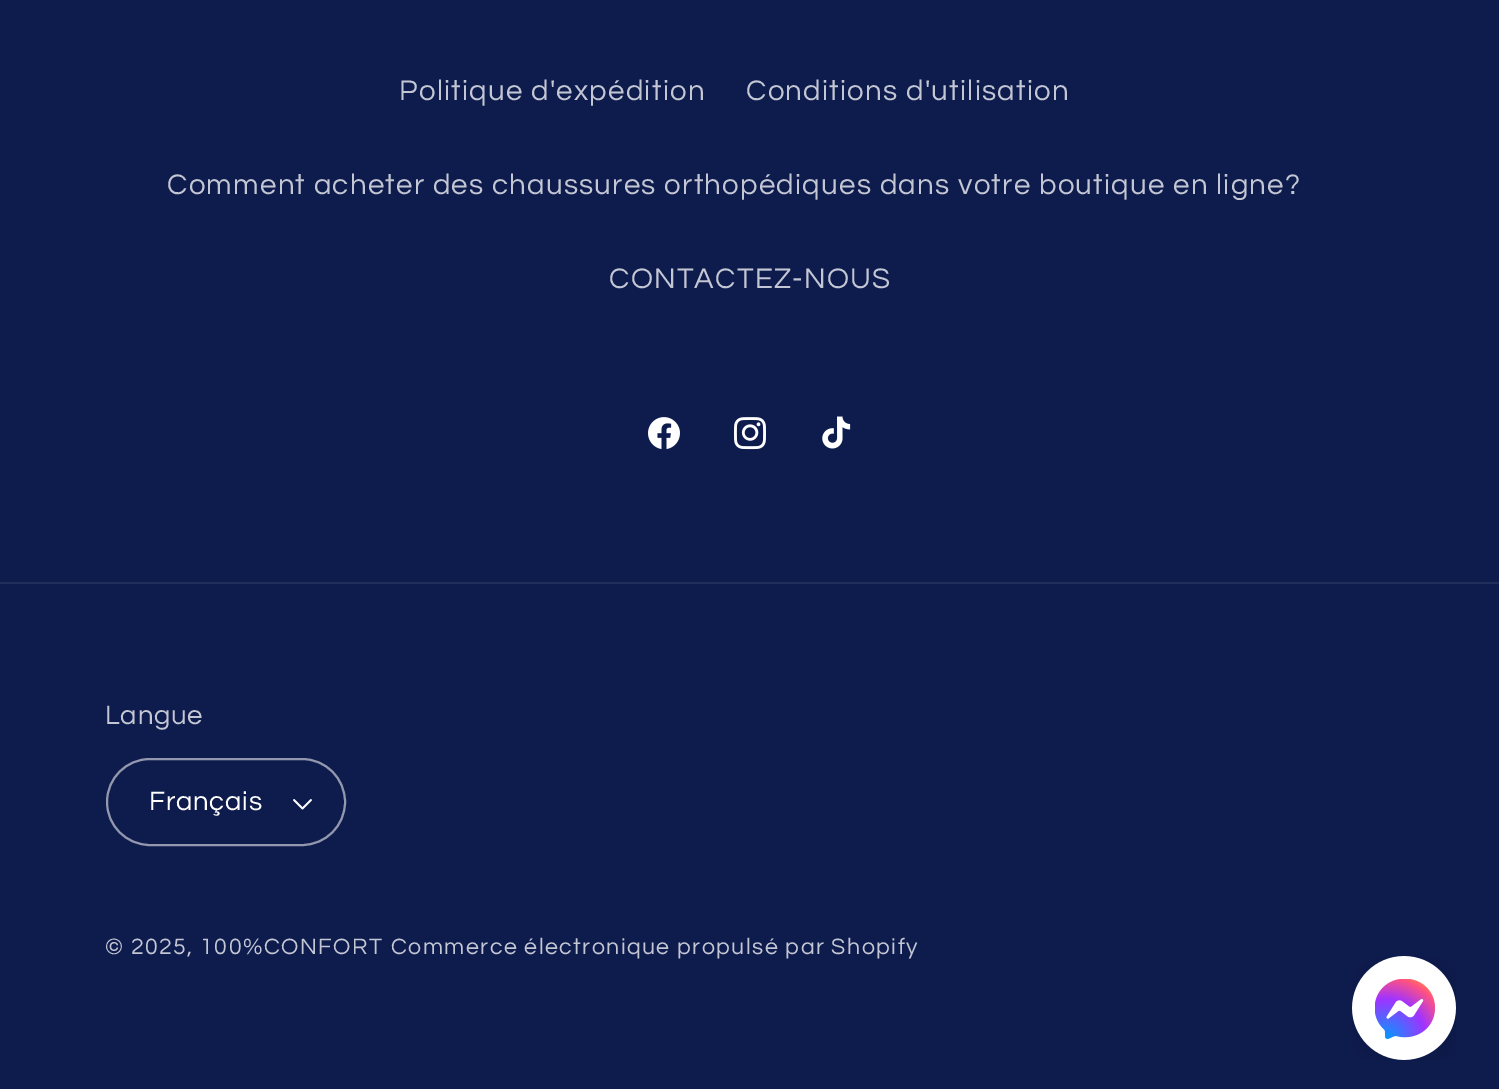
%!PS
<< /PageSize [1499 1089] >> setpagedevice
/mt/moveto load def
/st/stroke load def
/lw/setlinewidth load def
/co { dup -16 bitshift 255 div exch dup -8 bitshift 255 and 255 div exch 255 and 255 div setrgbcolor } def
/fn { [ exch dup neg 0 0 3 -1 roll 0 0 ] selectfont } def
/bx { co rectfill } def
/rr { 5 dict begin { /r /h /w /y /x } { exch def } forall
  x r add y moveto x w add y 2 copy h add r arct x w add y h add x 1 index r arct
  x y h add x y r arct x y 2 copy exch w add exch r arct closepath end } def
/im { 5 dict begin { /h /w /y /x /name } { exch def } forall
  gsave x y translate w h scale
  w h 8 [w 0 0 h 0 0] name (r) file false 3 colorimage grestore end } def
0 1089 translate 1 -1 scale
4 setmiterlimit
0 0 1499 1089 16#0E1B4D bx
(media/1.raw) 648 417 32 32 im
(media/2.raw) 734 417 32 33 im
(media/3.raw) 822 416 29 33 im
0 582 1499 2 16#212D5B bx
(media/4.raw) 293 799 19 11 im
16#9398AF co
2 lw
107 759 238 86 43 rr st
(media/5.raw) 1352 956 104 104 im
/Questrial-Regular 29.4 fn
16#C3C6D3 co
399 100 mt 1.25 0 (Politique d'expédition) ashow
746 100 mt 1.25 0 (Conditions d'utilisation) ashow
167 194 mt 1.25 0 (Comment acheter des chaussures orthopédiques dans votre boutique en ligne?) ashow
609 288 mt 1.25 0 (CONTACTEZ-NOUS) ashow
/Questrial-Regular 27.5 fn
105 724 mt .75 0 (Langue) ashow
16#FFFFFF co
149 810 mt .75 0 (Français) ashow
/Questrial-Regular 23.1 fn
16#C3C6D3 co
105 954 mt 1.45 0 (© 2025, 100%CONFORT) ashow
391 954 mt 1.45 0 (Commerce électronique propulsé par Shopify) ashow
showpage
